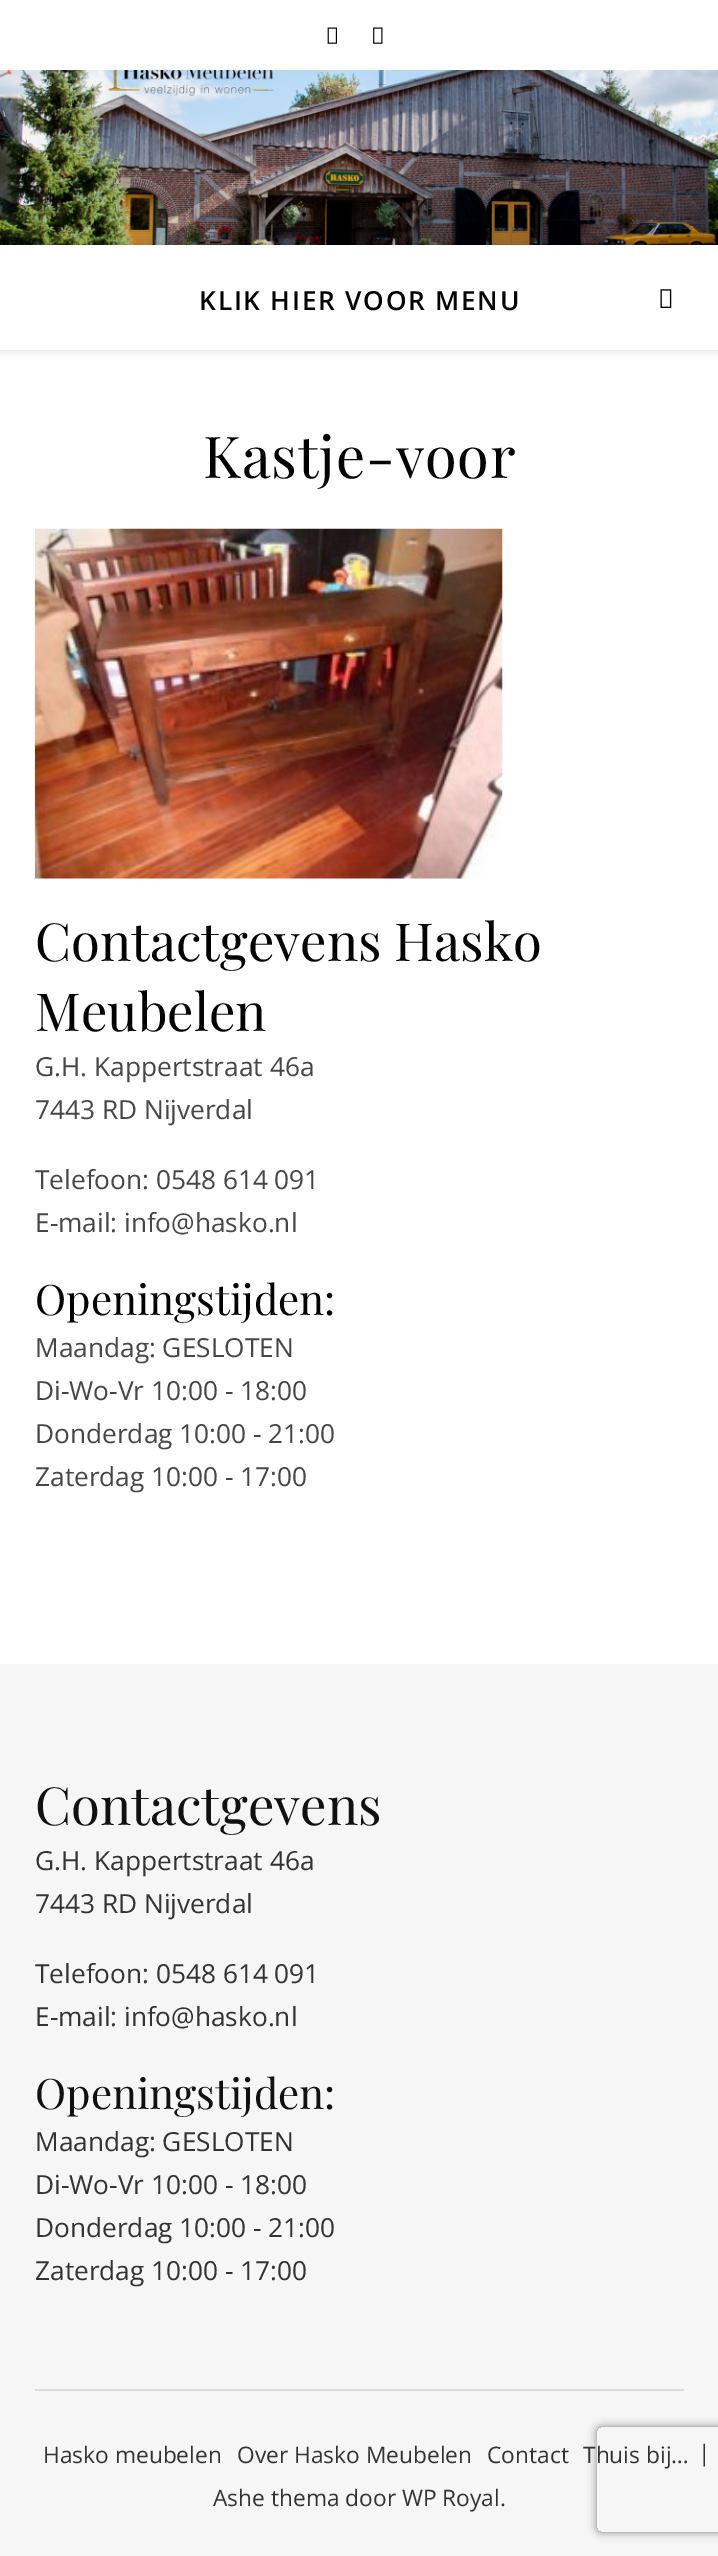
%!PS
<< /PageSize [718 2556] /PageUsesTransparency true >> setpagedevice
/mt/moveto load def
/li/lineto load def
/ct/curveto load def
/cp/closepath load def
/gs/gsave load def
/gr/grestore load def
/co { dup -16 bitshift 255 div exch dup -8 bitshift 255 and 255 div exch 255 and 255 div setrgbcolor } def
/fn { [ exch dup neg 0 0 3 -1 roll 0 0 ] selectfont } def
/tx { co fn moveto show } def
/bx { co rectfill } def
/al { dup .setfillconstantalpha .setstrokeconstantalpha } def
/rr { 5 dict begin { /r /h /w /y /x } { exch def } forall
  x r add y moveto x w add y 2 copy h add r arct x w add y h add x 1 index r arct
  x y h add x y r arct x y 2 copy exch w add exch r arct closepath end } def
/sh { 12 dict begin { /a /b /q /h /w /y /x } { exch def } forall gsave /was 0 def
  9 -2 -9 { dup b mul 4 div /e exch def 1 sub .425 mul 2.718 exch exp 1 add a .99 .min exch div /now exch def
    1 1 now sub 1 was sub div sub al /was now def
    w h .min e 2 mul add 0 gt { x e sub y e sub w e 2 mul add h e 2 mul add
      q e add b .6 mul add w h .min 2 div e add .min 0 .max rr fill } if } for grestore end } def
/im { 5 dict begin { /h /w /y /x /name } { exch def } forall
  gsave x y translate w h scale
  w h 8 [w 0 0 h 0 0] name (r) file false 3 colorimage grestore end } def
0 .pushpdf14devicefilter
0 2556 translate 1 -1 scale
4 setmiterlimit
0 0 718 2556 16#FFFFFF bx
(media/1.raw) 327 27 10 17 im
(media/2.raw) 373 27 10 17 im
(media/3.raw) 0 70 718 175 im
gs
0 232 mt 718 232 li 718 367 li 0 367 li cp 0 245 mt 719 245 li 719 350 li 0 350 li cp eoclip newpath
16#000000 co
0 247 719 105 0 4.5 .1 sh
gr
(media/4.raw) 660 289 12 19 im
(media/5.raw) 35 528 468 351 im
0 1664 718 892 16#F6F6F6 bx
35 2389 649 2 16#E0DBDB bx
gs
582 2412 mt 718 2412 li 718 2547 li 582 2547 li cp 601 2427 mt 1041 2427 li 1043 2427 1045 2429 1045 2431 ct 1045 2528 li 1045 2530 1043 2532 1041 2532 ct 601 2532 li 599 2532 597 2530 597 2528 ct 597 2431 li 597 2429 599 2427 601 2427 ct cp eoclip newpath
16#808080 co
597 2427 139 105 4 4.5 1 sh
gr
/OpenSans-SemiBold 26.25 fn
16#030303 co
199 310 mt 1.75 0 (KLIK HIER VOOR MENU) ashow
/PlayfairDisplay-Regular 57.75 fn
203 478 mt .9 0 (Kastje-voor) ashow
(Contactgevens Hasko) 35 961 /PlayfairDisplay-Regular 52.5 16#030303 tx
(Meubelen) 35 1031 /PlayfairDisplay-Regular 52.5 16#030303 tx
(G.H. Kappertstraat 46a) 35 1076 /OpenSans-Regular 26.25 16#464646 tx
(7443 RD Nijverdal) 35 1119 /OpenSans-Regular 26.25 16#464646 tx
(Telefoon: 0548 614 091) 35 1189 /OpenSans-Regular 26.25 16#464646 tx
(E-mail: info@hasko.nl) 35 1232 /OpenSans-Regular 26.25 16#464646 tx
(Openingstijden:) 35 1315 /PlayfairDisplay-Regular 42 16#030303 tx
(Maandag: GESLOTEN) 35 1357 /OpenSans-Regular 26.25 16#464646 tx
(Di-Wo-Vr 10:00 - 18:00) 35 1400 /OpenSans-Regular 26.25 16#464646 tx
(Donderdag 10:00 - 21:00) 35 1443 /OpenSans-Regular 26.25 16#464646 tx
(Zaterdag 10:00 - 17:00) 35 1486 /OpenSans-Regular 26.25 16#464646 tx
(Contactgevens) 35 1825 /PlayfairDisplay-Regular 52.5 16#111111 tx
(G.H. Kappertstraat 46a) 35 1870 /OpenSans-Regular 26.25 16#333333 tx
(7443 RD Nijverdal) 35 1913 /OpenSans-Regular 26.25 16#333333 tx
(Telefoon: 0548 614 091) 35 1983 /OpenSans-Regular 26.25 16#333333 tx
(E-mail: info@hasko.nl) 35 2026 /OpenSans-Regular 26.25 16#333333 tx
(Openingstijden:) 35 2109 /PlayfairDisplay-Regular 42 16#111111 tx
(Maandag: GESLOTEN) 35 2151 /OpenSans-Regular 26.25 16#333333 tx
(Di-Wo-Vr 10:00 - 18:00) 35 2194 /OpenSans-Regular 26.25 16#333333 tx
(Donderdag 10:00 - 21:00) 35 2237 /OpenSans-Regular 26.25 16#333333 tx
(Zaterdag 10:00 - 17:00) 35 2280 /OpenSans-Regular 26.25 16#333333 tx
(Hasko meubelen) 43 2463 /OpenSans-Regular 22.75 16#333333 tx
(Over Hasko Meubelen) 237 2463 /OpenSans-Regular 22.75 16#333333 tx
(Contact) 487 2463 /OpenSans-Regular 22.75 16#333333 tx
(Thuis bij…) 583 2463 /OpenSans-Regular 22.75 16#333333 tx
(|) 698 2461 /OpenSans-Regular 22.75 16#333333 tx
(Ashe thema door WP Royal.) 213 2506 /OpenSans-Regular 22.75 16#333333 tx
.poppdf14devicefilter showpage
